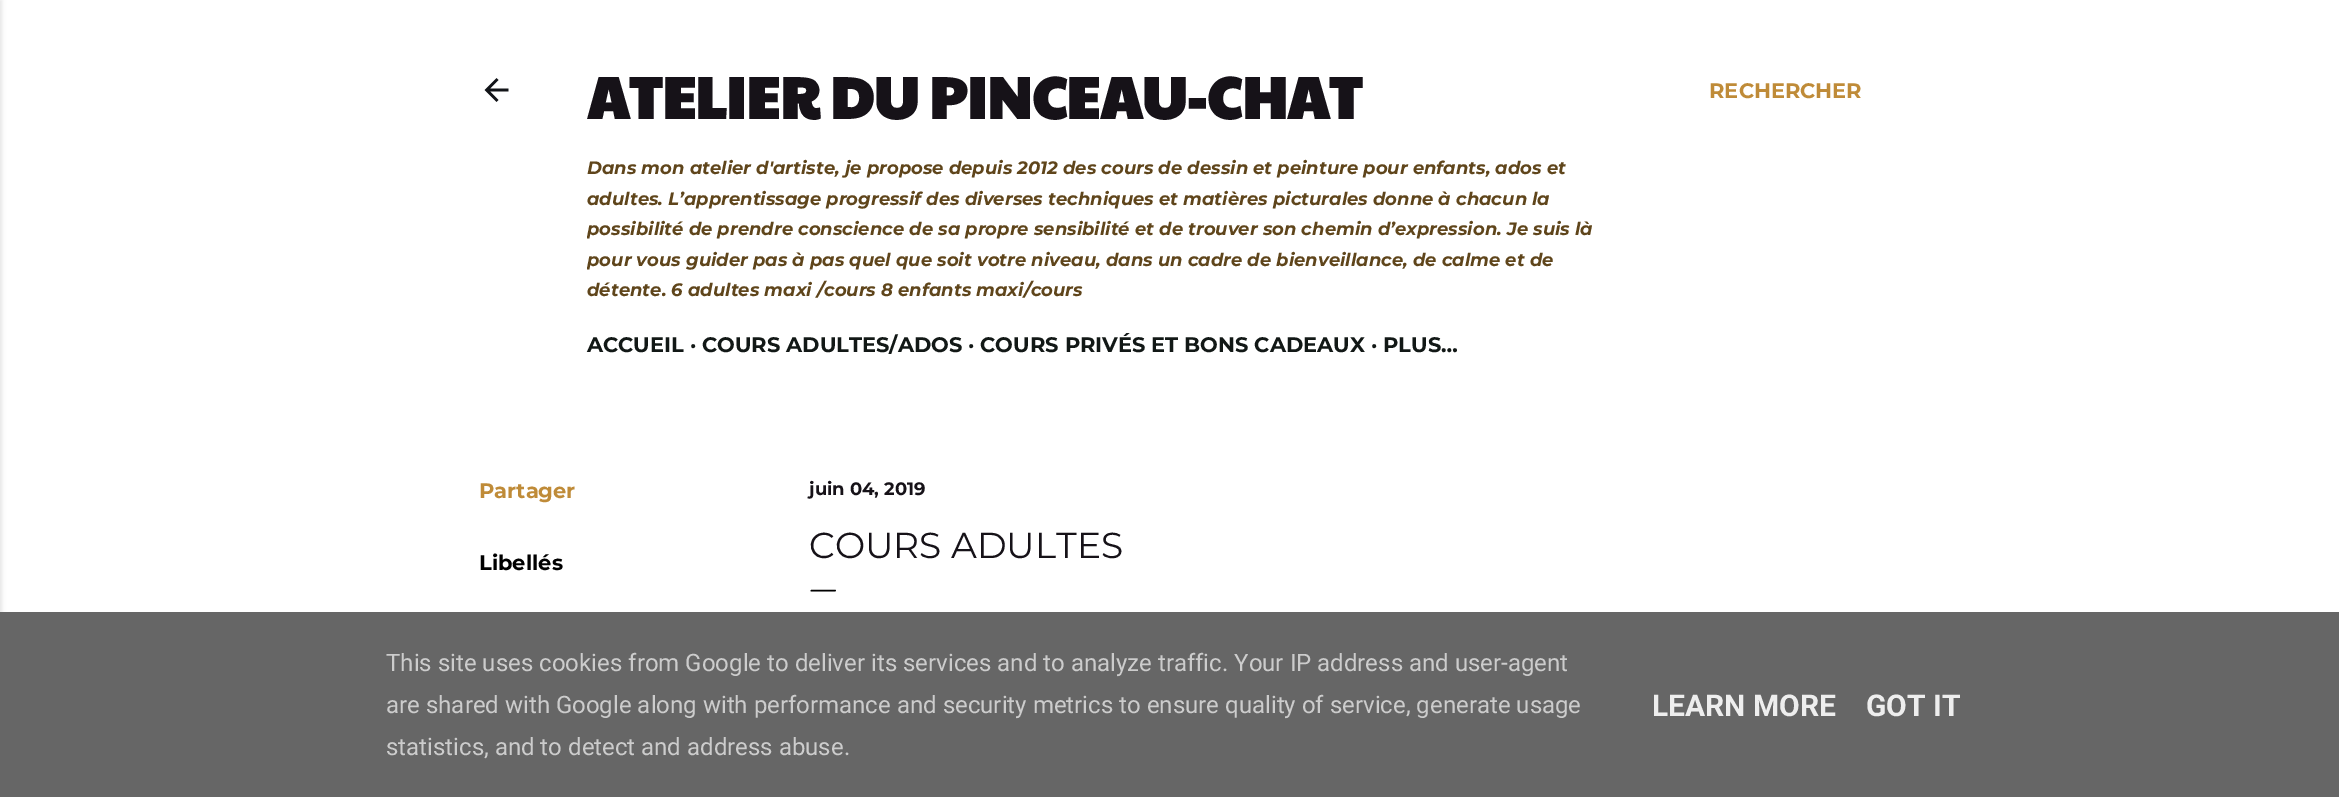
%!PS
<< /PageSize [2339 797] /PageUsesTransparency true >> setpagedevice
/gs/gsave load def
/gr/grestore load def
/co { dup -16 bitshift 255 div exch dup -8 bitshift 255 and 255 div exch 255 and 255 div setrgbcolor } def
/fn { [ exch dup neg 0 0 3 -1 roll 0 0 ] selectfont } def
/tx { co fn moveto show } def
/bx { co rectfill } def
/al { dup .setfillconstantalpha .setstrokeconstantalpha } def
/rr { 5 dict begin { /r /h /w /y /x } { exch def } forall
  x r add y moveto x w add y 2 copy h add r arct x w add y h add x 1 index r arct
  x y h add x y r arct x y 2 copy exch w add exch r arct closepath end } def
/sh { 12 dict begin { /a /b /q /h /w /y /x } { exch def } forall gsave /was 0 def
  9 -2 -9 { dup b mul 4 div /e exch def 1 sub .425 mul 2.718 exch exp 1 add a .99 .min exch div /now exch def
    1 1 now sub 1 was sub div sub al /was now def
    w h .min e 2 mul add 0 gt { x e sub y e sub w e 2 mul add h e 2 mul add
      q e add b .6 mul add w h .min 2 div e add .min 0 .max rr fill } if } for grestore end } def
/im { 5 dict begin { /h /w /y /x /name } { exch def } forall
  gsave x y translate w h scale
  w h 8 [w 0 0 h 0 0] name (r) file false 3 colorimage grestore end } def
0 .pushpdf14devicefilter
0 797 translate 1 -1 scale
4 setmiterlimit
0 0 2339 797 16#FFFFFF bx
16#000000 co
-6 0 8 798 0 2 .1 sh
(media/1.raw) 484 78 25 24 im
0 612 2339 185 16#666666 bx
(ATELIER DU PINCEAU-CHAT) 587 119 /PaytoneOne-Bold 58.5 16#161218 tx
(Dans mon atelier d'artiste, je propose depuis 2012 des cours de dessin et peinture pour enfants, ados et) 587 174 /Montserrat-ThinItalic 18 16#5F451B tx
(adultes. L’apprentissage progressif des diverses techniques et matières picturales donne à chacun la) 587 205 /Montserrat-ThinItalic 18 16#5F451B tx
gs
587 54 1050 312 rectclip
(possibilité de prendre conscience de sa propre sensibilité et de trouver son chemin d’expression.) 587 235 /Montserrat-ThinItalic 18 16#5F451B tx
gr
(Je suis là) 1507 235 /Montserrat-ThinItalic 18 16#5F451B tx
gs
587 54 1050 312 rectclip
(pour vous guider pas à pas quel que soit votre niveau, dans un cadre de bienveillance, de calme et de) 587 266 /Montserrat-ThinItalic 18 16#5F451B tx
gr
(détente. 6 adultes maxi /cours 8 enfants maxi/cours) 587 296 /Montserrat-ThinItalic 18 16#5F451B tx
(ACCUEIL · COURS ADULTES/ADOS · COURS PRIVÉS ET BONS CADEAUX · PLUS…) 587 352 /Montserrat-Thin 21 16#121816 tx
(RECHERCHER) 1709 98 /Montserrat-Thin 21 16#BF8B38 tx
(Partager) 479 498 /Montserrat-Thin 21 16#BF8B38 tx
(Libellés) 479 570 /Montserrat-Thin 21 16#000000 tx
(juin 04, 2019) 809 495 /Montserrat-Thin 18 16#161218 tx
(COURS ADULTES) 809 558 /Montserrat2-Thin 36 16#161218 tx
(—) 809 597 /EBGaramond-Regular 30 16#000000 tx
(This site uses cookies from Google to deliver its services and to analyze traffic. Your IP address and user-agent) 386 671 /Roboto-Regular 24 16#CCCCCC tx
(are shared with Google along with performance and security metrics to ensure quality of service, generate usage) 386 713 /Roboto-Regular 24 16#CCCCCC tx
(statistics, and to detect and address abuse.) 386 755 /Roboto-Regular 24 16#CCCCCC tx
(LEARN MORE) 1652 716 /Roboto-Bold 30 16#EEEEEE tx
(GOT IT) 1866 716 /Roboto-Bold 30 16#EEEEEE tx
.poppdf14devicefilter showpage
